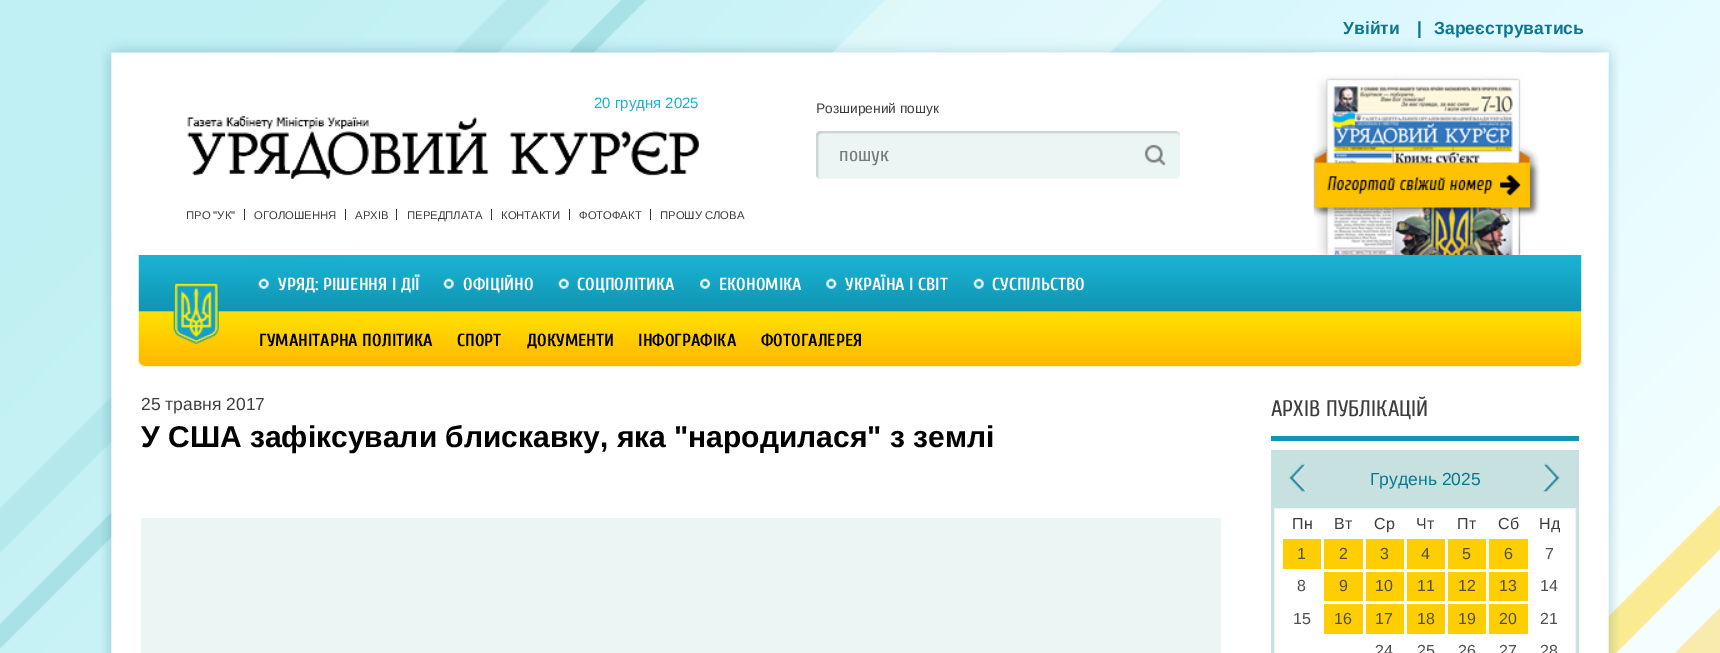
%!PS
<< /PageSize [1720 653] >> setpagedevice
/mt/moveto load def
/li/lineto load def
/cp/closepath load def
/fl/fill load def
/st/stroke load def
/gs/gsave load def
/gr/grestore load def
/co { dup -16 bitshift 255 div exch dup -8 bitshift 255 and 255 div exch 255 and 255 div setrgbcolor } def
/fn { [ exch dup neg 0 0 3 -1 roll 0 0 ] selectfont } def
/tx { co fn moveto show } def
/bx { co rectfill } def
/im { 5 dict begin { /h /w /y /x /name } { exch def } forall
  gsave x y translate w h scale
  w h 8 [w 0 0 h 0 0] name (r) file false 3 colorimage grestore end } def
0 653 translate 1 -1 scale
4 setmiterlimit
0 0 1720 653 16#FFFFFF bx
(media/1.raw) 0 0 1720 653 im
(media/2.raw) 101 66 1518 587 im
(media/3.raw) 101 0 1519 66 im
(media/4.raw) 187 116 512 63 im
(media/5.raw) 816 131 364 48 im
(media/6.raw) 1313 52 228 203 im
244 209 1 11 16#333333 bx
345 209 1 11 16#333333 bx
396 209 1 11 16#333333 bx
491 209 1 11 16#333333 bx
569 209 1 11 16#333333 bx
650 209 1 11 16#333333 bx
(media/7.raw) 138 255 1444 112 im
(media/8.raw) 258 278 11 11 im
(media/8.raw) 443 278 11 11 im
(media/9.raw) 558 278 11 11 im
(media/10.raw) 700 278 10 11 im
(media/11.raw) 826 278 11 11 im
(media/9.raw) 973 278 11 11 im
141 518 1080 135 16#EBF5F3 bx
1271 436 308 5 16#1096B4 bx
1271 450 308 203 16#C7E0E0 bx
(media/12.raw) 1288 463 19 29 im
(media/13.raw) 1543 463 17 29 im
16#FFFFFF co
1274.5 508.5 mt 1575.5 508.5 li 1575.5 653.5 li 1274.5 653.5 li cp gs fl gr
16#ECF5F5 co
st
1283 539 38 30 16#FFCE00 bx
1324 539 39 30 16#FFCE00 bx
1366 539 38 30 16#FFCE00 bx
1407 539 38 30 16#FFCE00 bx
1448 539 38 30 16#FFCE00 bx
1489 539 39 30 16#FFCE00 bx
1324 572 39 29 16#FFCE00 bx
1366 572 38 29 16#FFCE00 bx
1407 572 38 29 16#FFCE00 bx
1448 572 38 29 16#FFCE00 bx
1489 572 39 29 16#FFCE00 bx
1324 604 39 30 16#FFCE00 bx
1366 604 38 30 16#FFCE00 bx
1407 604 38 30 16#FFCE00 bx
1448 604 38 30 16#FFCE00 bx
1489 604 39 30 16#FFCE00 bx
(Увійти) 1343 34 /LiberationSans-Bold 17.5 16#0B768E tx
(|) 1417 34 /LiberationSans-Bold 17.5 16#0B768E tx
(Зареєструватись) 1434 34 /LiberationSans-Bold 17.5 16#0B768E tx
(20 грудня 2025) 594 108 /LiberationSans-Regular 15 16#1AB0D0 tx
(Розширений пошук) 816 113 /LiberationSans-Regular 13.75 16#3D3D3D tx
(пошук) 839 161 /Cuprum-Regular 20 16#7C7B7B tx
(ПРО "УК") 186 219 /LiberationSans-Regular 11.25 16#3D3D3D tx
(ОГОЛОШЕННЯ) 254 219 /LiberationSans-Regular 11.25 16#3D3D3D tx
(АРХІВ) 355 219 /LiberationSans-Regular 11.25 16#3D3D3D tx
(ПЕРЕДПЛАТА) 407 219 /LiberationSans-Regular 11.25 16#3D3D3D tx
(КОНТАКТИ) 501 219 /LiberationSans-Regular 11.25 16#3D3D3D tx
(ФОТОФАКТ) 579 219 /LiberationSans-Regular 11.25 16#3D3D3D tx
(ПРОШУ СЛОВА) 660 219 /LiberationSans-Regular 11.25 16#3D3D3D tx
(УРЯД: РІШЕННЯ І ДІЇ) 278 290 /Cuprum-Bold 17.5 16#FFFFFF tx
(ОФІЦІЙНО) 463 290 /Cuprum-Bold 17.5 16#FFFFFF tx
(СОЦПОЛІТИКА) 577 290 /Cuprum-Bold 17.5 16#FFFFFF tx
(ЕКОНОМІКА) 719 290 /Cuprum-Bold 17.5 16#FFFFFF tx
(УКРАЇНА І СВІТ) 845 290 /Cuprum-Bold 17.5 16#FFFFFF tx
(СУСПІЛЬСТВО) 992 290 /Cuprum-Bold 17.5 16#FFFFFF tx
(ГУМАНІТАРНА ПОЛІТИКА) 259 346 /Cuprum-Bold 17.5 16#000000 tx
(СПОРТ) 457 346 /Cuprum-Bold 17.5 16#000000 tx
(ДОКУМЕНТИ) 527 346 /Cuprum-Bold 17.5 16#000000 tx
(ІНФОГРАФІКА) 638 346 /Cuprum-Bold 17.5 16#000000 tx
(ФОТОГАЛЕРЕЯ) 761 346 /Cuprum-Bold 17.5 16#000000 tx
(25 травня 2017) 141 410 /LiberationSans-Regular 17.5 16#3D3D3D tx
(У США зафіксували блискавку, яка "народилася" з землі) 141 447 /LiberationSans-Bold 30 16#000000 tx
(АРХІВ ПУБЛІКАЦІЙ) 1271 416 /Cuprum-Regular 22.5 16#3D3D3D tx
(Грудень 2025) 1370 485 /LiberationSans-Regular 17.5 16#0B768E tx
(Пн) 1292 529 /LiberationSans-Regular 16 16#3D3D3D tx
(Вт) 1334 529 /LiberationSans-Regular 16 16#3D3D3D tx
(Ср) 1374 529 /LiberationSans-Regular 16 16#3D3D3D tx
(Чт) 1416 529 /LiberationSans-Regular 16 16#3D3D3D tx
(Пт) 1457 529 /LiberationSans-Regular 16 16#3D3D3D tx
(Сб) 1498 529 /LiberationSans-Regular 16 16#3D3D3D tx
(Нд) 1539 529 /LiberationSans-Regular 16 16#3D3D3D tx
(1) 1297 559 /LiberationSans-Regular 16 16#505050 tx
(2) 1339 559 /LiberationSans-Regular 16 16#505050 tx
(3) 1380 559 /LiberationSans-Regular 16 16#505050 tx
(4) 1421 559 /LiberationSans-Regular 16 16#505050 tx
(5) 1462 559 /LiberationSans-Regular 16 16#505050 tx
(6) 1504 559 /LiberationSans-Regular 16 16#505050 tx
(7) 1545 559 /LiberationSans-Regular 16 16#505050 tx
(8) 1297 591 /LiberationSans-Regular 16 16#505050 tx
(9) 1339 591 /LiberationSans-Regular 16 16#505050 tx
(10) 1375 591 /LiberationSans-Regular 16 16#505050 tx
(11) 1417 591 /LiberationSans-Regular 16 16#505050 tx
(12) 1458 591 /LiberationSans-Regular 16 16#505050 tx
(13) 1499 591 /LiberationSans-Regular 16 16#505050 tx
(14) 1540 591 /LiberationSans-Regular 16 16#505050 tx
(15) 1293 624 /LiberationSans-Regular 16 16#505050 tx
(16) 1334 624 /LiberationSans-Regular 16 16#505050 tx
(17) 1375 624 /LiberationSans-Regular 16 16#505050 tx
(18) 1417 624 /LiberationSans-Regular 16 16#505050 tx
(19) 1458 624 /LiberationSans-Regular 16 16#505050 tx
(20) 1499 624 /LiberationSans-Regular 16 16#505050 tx
(21) 1540 624 /LiberationSans-Regular 16 16#505050 tx
(24) 1375 656 /LiberationSans-Regular 16 16#505050 tx
(25) 1417 656 /LiberationSans-Regular 16 16#505050 tx
(26) 1458 656 /LiberationSans-Regular 16 16#505050 tx
(27) 1499 656 /LiberationSans-Regular 16 16#505050 tx
(28) 1540 656 /LiberationSans-Regular 16 16#505050 tx
showpage
